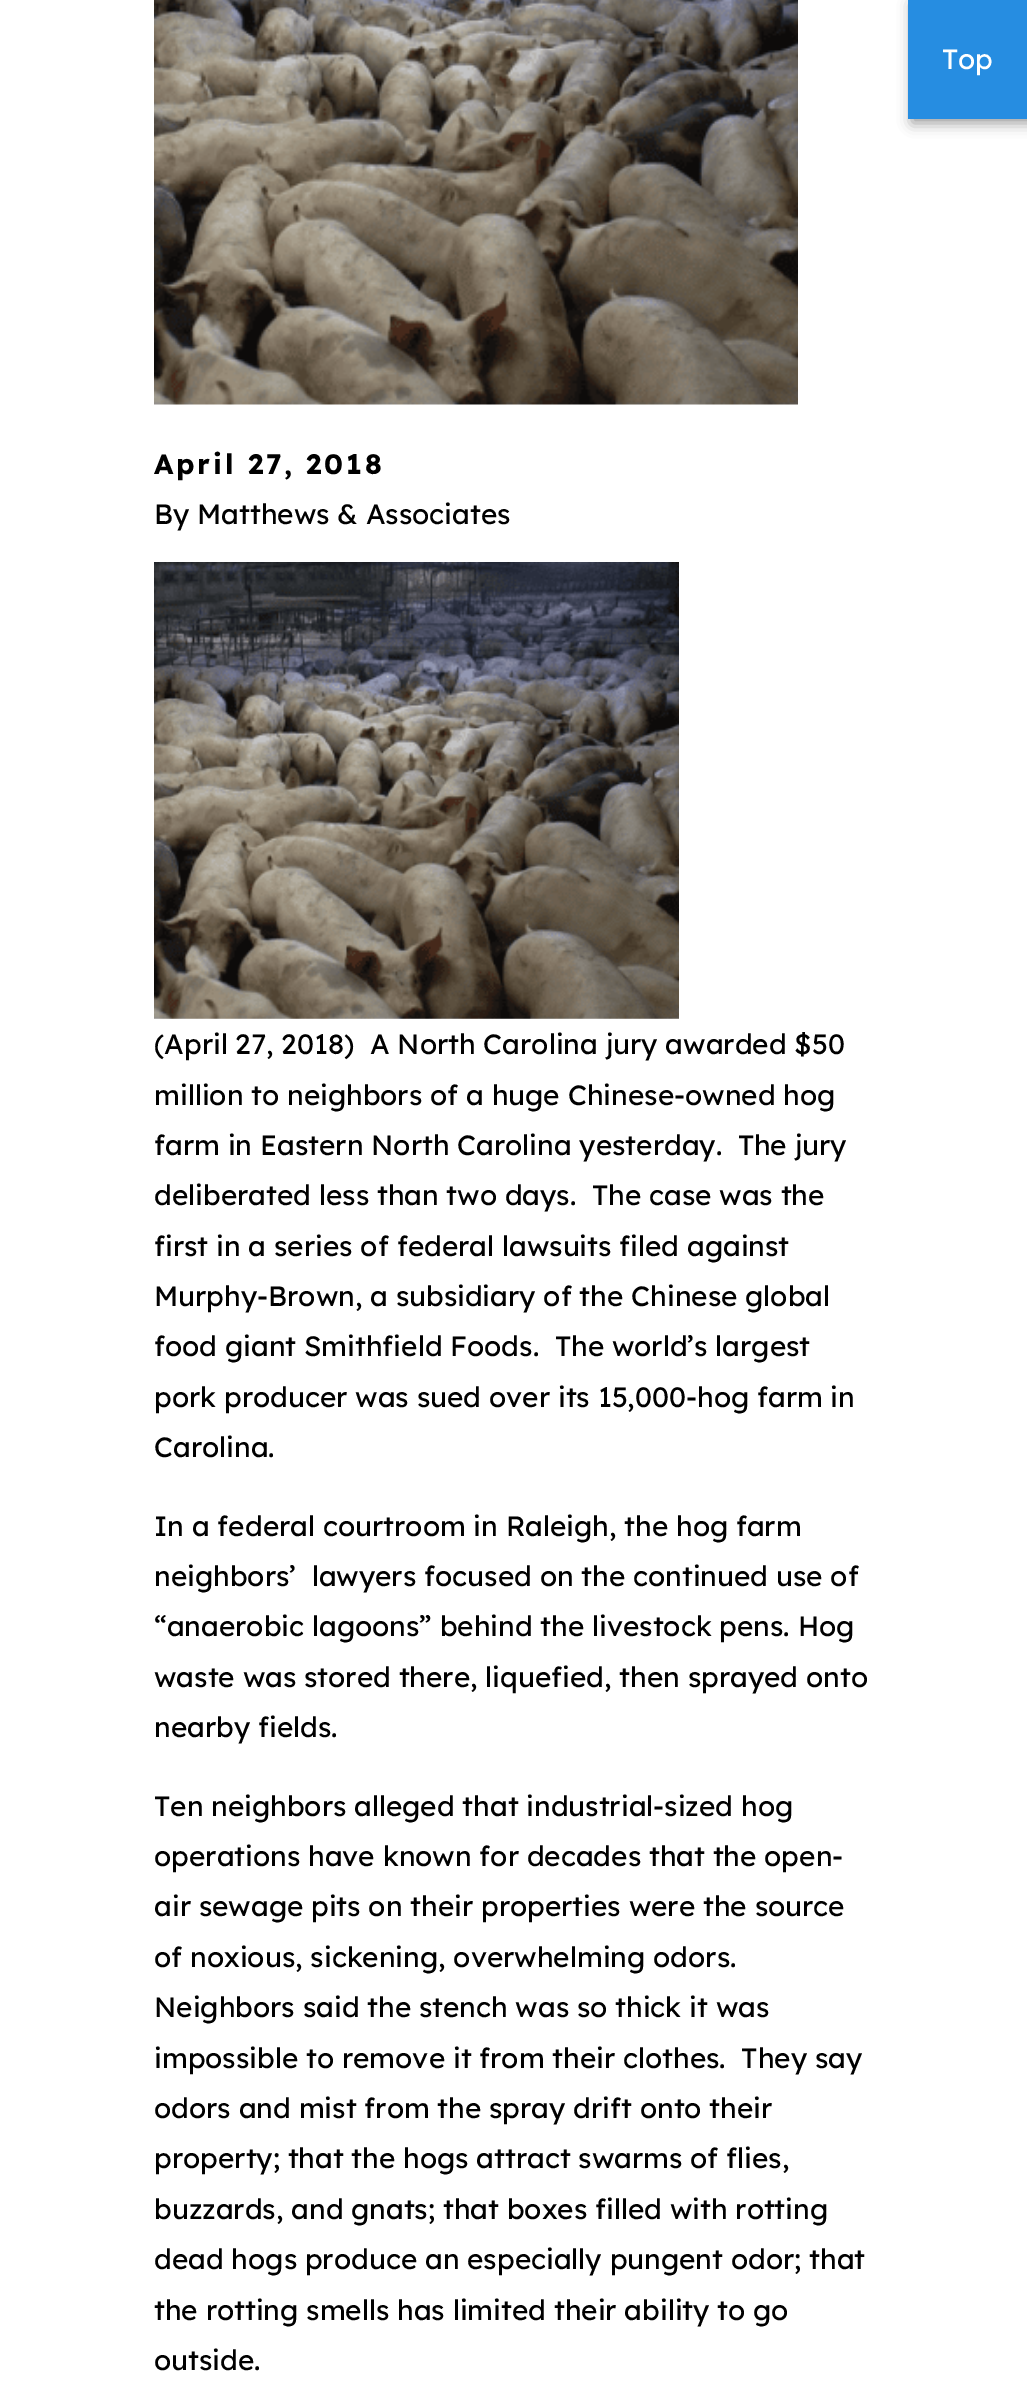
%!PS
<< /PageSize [1027 2394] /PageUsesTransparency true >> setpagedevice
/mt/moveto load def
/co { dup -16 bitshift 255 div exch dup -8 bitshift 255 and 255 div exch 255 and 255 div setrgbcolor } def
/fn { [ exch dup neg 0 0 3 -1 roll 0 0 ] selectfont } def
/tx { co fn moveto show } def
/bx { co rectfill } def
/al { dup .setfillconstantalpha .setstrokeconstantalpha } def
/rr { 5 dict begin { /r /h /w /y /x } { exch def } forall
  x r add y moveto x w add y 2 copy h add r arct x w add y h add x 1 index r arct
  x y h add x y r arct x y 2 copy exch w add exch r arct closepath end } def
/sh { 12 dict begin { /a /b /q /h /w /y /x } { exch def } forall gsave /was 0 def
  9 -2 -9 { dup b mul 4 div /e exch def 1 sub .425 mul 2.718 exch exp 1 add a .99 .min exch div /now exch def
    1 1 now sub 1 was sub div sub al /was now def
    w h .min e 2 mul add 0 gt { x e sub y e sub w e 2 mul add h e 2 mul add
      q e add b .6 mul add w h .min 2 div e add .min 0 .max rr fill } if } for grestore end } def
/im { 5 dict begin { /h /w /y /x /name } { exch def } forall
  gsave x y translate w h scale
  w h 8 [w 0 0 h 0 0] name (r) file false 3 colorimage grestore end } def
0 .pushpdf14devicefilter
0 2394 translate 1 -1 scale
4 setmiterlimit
0 0 1027 2394 16#FFFFFF bx
16#000000 co
912 4 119 119 0 7 .4 sh
908 0 119 119 16#268DE1 bx
(media/1.raw) 154 0 644 405 im
(media/2.raw) 154 562 525 457 im
(Top) 942 69 /Lexend-Regular 28 16#FFFFFF tx
/Lexend-Bold 28 fn
16#000000 co
154 474 mt 2.75 0 (April 27, 2018) ashow
(By Matthews & Associates) 154 524 /Lexend-Regular 28 16#000000 tx
(\(April 27, 2018\)) 154 1054 /Lexend-Regular 28 16#000000 tx
(A North Carolina jury awarded $50) 370 1054 /Lexend-Regular 28 16#000000 tx
(million to neighbors of a huge Chinese-owned hog) 154 1105 /Lexend-Regular 28 16#000000 tx
(farm in Eastern North Carolina yesterday.  The jury) 154 1155 /Lexend-Regular 28 16#000000 tx
(deliberated less than two days.  The case was the) 154 1205 /Lexend-Regular 28 16#000000 tx
(first in a series of federal lawsuits filed against) 154 1256 /Lexend-Regular 28 16#000000 tx
(Murphy-Brown, a subsidiary of the Chinese global) 154 1306 /Lexend-Regular 28 16#000000 tx
(food giant Smithfield Foods.  The world’s largest) 154 1356 /Lexend-Regular 28 16#000000 tx
(pork producer was sued over its 15,000-hog farm in) 154 1407 /Lexend-Regular 28 16#000000 tx
(Carolina.) 154 1457 /Lexend-Regular 28 16#000000 tx
(In a federal courtroom in Raleigh, the hog farm) 154 1536 /Lexend-Regular 28 16#000000 tx
(neighbors’  lawyers focused on the continued use of) 154 1586 /Lexend-Regular 28 16#000000 tx
(“anaerobic lagoons” behind the livestock pens. Hog) 154 1636 /Lexend-Regular 28 16#000000 tx
(waste was stored there, liquefied, then sprayed onto) 154 1687 /Lexend-Regular 28 16#000000 tx
(nearby fields.) 154 1737 /Lexend-Regular 28 16#000000 tx
(Ten neighbors alleged that industrial-sized hog) 154 1816 /Lexend-Regular 28 16#000000 tx
(operations have known for decades that the open-) 154 1866 /Lexend-Regular 28 16#000000 tx
(air sewage pits on their properties were the source) 154 1916 /Lexend-Regular 28 16#000000 tx
(of noxious, sickening, overwhelming odors.) 154 1967 /Lexend-Regular 28 16#000000 tx
(Neighbors said the stench was so thick it was) 154 2017 /Lexend-Regular 28 16#000000 tx
(impossible to remove it from their clothes.  They say) 154 2068 /Lexend-Regular 28 16#000000 tx
(odors and mist from the spray drift onto their) 154 2118 /Lexend-Regular 28 16#000000 tx
(property; that the hogs attract swarms of flies,) 154 2168 /Lexend-Regular 28 16#000000 tx
(buzzards, and gnats; that boxes filled with rotting) 154 2219 /Lexend-Regular 28 16#000000 tx
(dead hogs produce an especially pungent odor; that) 154 2269 /Lexend-Regular 28 16#000000 tx
(the rotting smells has limited their ability to go) 154 2320 /Lexend-Regular 28 16#000000 tx
(outside.) 154 2370 /Lexend-Regular 28 16#000000 tx
.poppdf14devicefilter showpage
